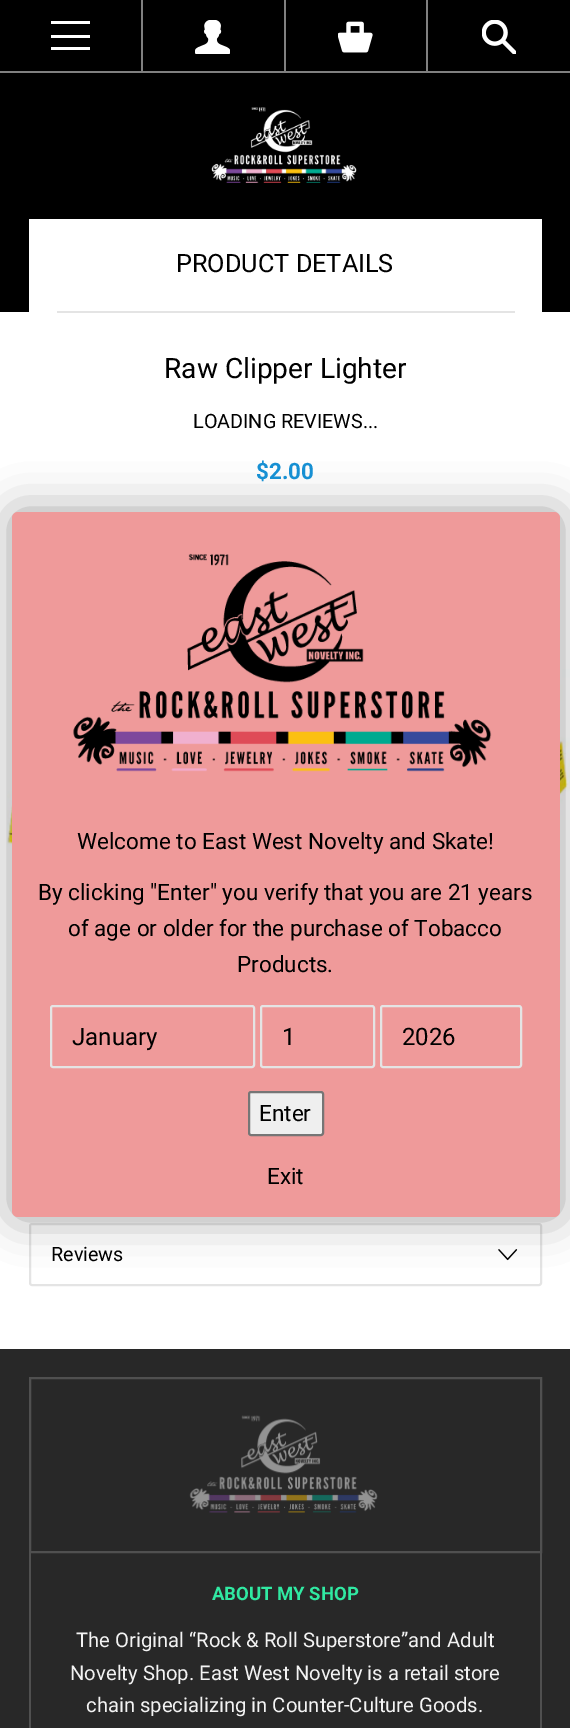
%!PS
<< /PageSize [570 1728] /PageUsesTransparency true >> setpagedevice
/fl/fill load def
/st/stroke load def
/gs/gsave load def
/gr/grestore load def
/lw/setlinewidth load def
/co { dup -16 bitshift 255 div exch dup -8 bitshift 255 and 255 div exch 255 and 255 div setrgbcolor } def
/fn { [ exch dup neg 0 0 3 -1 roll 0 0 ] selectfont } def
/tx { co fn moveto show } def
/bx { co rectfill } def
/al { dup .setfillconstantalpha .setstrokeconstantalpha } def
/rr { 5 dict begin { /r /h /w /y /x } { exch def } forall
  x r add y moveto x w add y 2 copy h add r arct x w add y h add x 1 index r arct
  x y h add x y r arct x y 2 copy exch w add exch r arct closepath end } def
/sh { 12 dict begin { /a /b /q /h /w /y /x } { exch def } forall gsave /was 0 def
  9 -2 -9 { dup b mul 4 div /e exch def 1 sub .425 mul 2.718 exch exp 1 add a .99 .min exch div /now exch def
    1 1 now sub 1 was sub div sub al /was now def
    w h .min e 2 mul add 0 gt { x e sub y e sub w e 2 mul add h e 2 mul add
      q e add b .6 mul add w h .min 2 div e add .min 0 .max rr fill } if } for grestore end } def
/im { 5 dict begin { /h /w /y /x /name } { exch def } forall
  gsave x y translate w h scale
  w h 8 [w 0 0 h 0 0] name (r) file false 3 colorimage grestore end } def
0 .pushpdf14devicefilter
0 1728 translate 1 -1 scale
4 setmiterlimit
0 0 570 1728 16#FFFFFF bx
0 0 570 71 16#000000 bx
0 71 570 2 16#808080 bx
141 0 2 71 16#808080 bx
51 35 39 3 16#FFFFFF bx
51 21 39 3 16#FFFFFF bx
51 47 39 3 16#FFFFFF bx
284 0 2 71 16#808080 bx
(media/1.raw) 195 20 35 34 im
426 0 2 71 16#808080 bx
(media/2.raw) 338 21 35 32 im
(media/3.raw) 482 20 34 34 im
0 73 570 239 16#000000 bx
(media/4.raw) 211 107 146 76 im
29 219 513 93 16#FFFFFF bx
57 311 458 2 16#E4E4E4 bx
(media/5.raw) 7 525 563 345 im
2 lw
30 1224 511 61 2 rr st
(media/6.raw) 498 1249 20 12 im
0 1349 570 379 16#282828 bx
16#505050 co
30 1378 511 174 rectstroke
(media/7.raw) 189 1415 189 98 im
540 1553 2 175 16#505050 bx
29 1553 2 175 16#505050 bx
16#000000 co
12 512 548 705 6 22.5 .35 sh
16#EF9A9A co
12 512 548 705 6 rr fl
(media/8.raw) 73 553 419 219 im
16#E4E4E4 co
51 1006 203 61 2 rr st
261 1006 113 61 2 rr st
381 1006 140 61 2 rr st
16#EFEFEF co
249 1092 74 43 2 rr gs fl gr
16#767676 co
st
(PRODUCT DETAILS) 176 272 /Roboto-Regular 25.25 16#000000 tx
(Raw Clipper Lighter) 164 378 /Roboto-Regular 28.1 16#000000 tx
(LOADING REVIEWS...) 193 428 /Roboto-Regular 19.75 16#000000 tx
($2.00) 256 479 /Roboto-Bold 22.5 16#1790D3 tx
(Reviews) 51 1261 /Roboto-Regular 19.75 16#000000 tx
(ABOUT MY SHOP) 212 1600 /Roboto-Bold 18.5 16#30E9A2 tx
(The Original “Rock & Roll Superstore”and Adult) 76 1647 /Roboto-Regular 20.25 16#F3F3F3 tx
(Novelty Shop. East West Novelty is a retail store) 70 1680 /Roboto-Regular 20.25 16#F3F3F3 tx
(chain specializing in Counter-Culture Goods.) 86 1712 /Roboto-Regular 20.25 16#F3F3F3 tx
(Welcome to East West Novelty and Skate!) 77 849 /Roboto-Regular 22.5 16#000000 tx
(By clicking "Enter" you verify that you are 21 years) 38 900 /Roboto-Regular 22.5 16#000000 tx
(of age or older for the purchase of Tobacco) 68 936 /Roboto-Regular 22.5 16#000000 tx
(Products.) 237 972 /Roboto-Regular 22.5 16#000000 tx
(January) 72 1045 /Roboto-Regular 24 16#000000 tx
(1) 282 1045 /Roboto-Regular 24 16#000000 tx
(2026) 402 1045 /Roboto-Regular 24 16#000000 tx
(Enter) 259 1121 /Roboto-Regular 22.5 16#000000 tx
(Exit) 267 1184 /Roboto-Regular 22.5 16#000000 tx
.poppdf14devicefilter showpage
